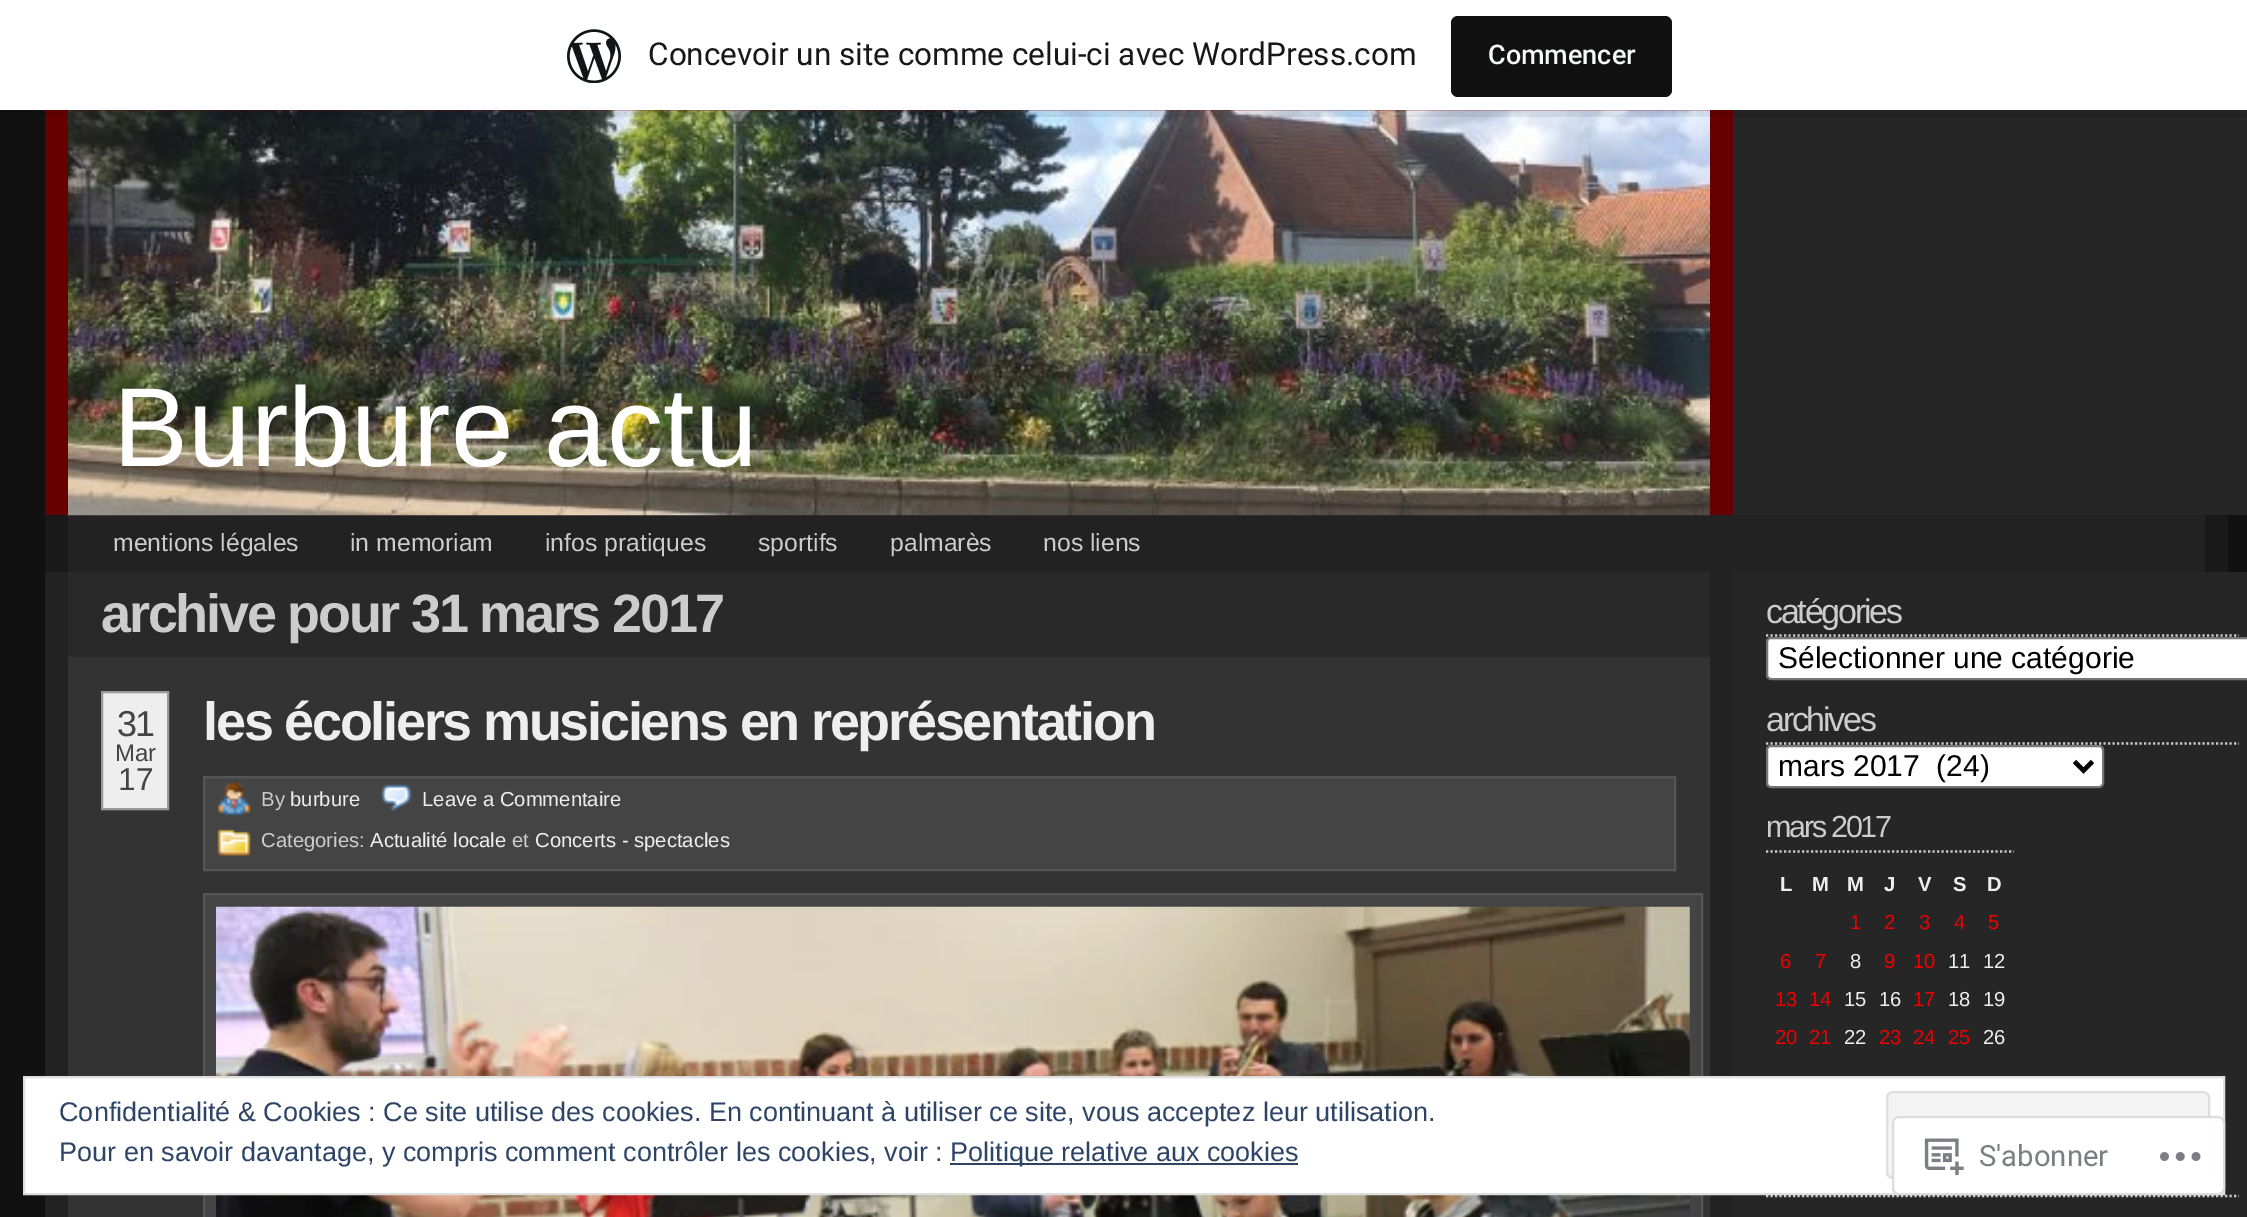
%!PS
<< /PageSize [2247 1217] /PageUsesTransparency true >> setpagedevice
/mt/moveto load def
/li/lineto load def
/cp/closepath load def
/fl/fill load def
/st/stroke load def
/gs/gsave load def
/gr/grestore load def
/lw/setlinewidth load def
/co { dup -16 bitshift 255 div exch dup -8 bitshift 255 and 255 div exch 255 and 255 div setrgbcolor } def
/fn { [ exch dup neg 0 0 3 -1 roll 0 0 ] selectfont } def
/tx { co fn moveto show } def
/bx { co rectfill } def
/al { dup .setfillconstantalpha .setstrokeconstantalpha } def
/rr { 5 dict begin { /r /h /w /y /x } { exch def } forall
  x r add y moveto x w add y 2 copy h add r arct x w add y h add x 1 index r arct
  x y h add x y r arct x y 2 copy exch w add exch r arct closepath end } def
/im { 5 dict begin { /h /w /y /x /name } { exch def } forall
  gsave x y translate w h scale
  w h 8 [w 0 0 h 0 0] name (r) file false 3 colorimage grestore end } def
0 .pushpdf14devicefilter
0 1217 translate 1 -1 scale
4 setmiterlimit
0 0 2247 1217 16#111111 bx
68 515 2137 57 16#222222 bx
45 515 23 57 16#191919 bx
(media/2.raw) 67 110 1643 406 im
1710 110 23 405 16#660000 bx
45 110 23 405 16#660000 bx
1733 110 514 405 16#262626 bx
0.08 al
16#000000 co
2 110 mt 2 117 li 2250 117 li 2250 7 li 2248 7 li 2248 110 li cp fl
1 al
0 0 2247 110 16#FFFFFF bx
(media/1.raw) 567 29 54 54 im
16#111111 co
1451 16 221 81 7 rr fl
2205 515 23 57 16#191919 bx
68 657 1642 560 16#333333 bx
1710 572 23 645 16#222222 bx
45 572 23 645 16#222222 bx
68 572 1642 85 16#292929 bx
16#EEEEEE co
102 692 mt 168 692 li 168 809 li 102 809 li cp gs fl gr
16#999999 co
2 lw
st
16#444444 co
204 777 mt 1675 777 li 1675 870 li 204 870 li cp gs fl gr
16#555555 co
st
(media/3.raw) 217 783 34 32 im
(media/4.raw) 380 784 33 27 im
(media/5.raw) 217 829 34 27 im
16#444444 co
204 894 mt 1702 894 li 1702 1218 li 204 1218 li cp gs fl gr
16#555555 co
st
(media/6.raw) 216 906 1474 311 im
1733 572 514 645 16#262626 bx
16#CCCCCC co
2.2 lw
[2.25 2.25] 0 setdash
1766 635.5 mt 2239 635.5 li st
16#FFFFFF co
1767 638 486 41 4 rr gs fl gr
16#767676 co
2 lw
[] 0 setdash
st
16#CCCCCC co
2.2 lw
[2.25 2.25] 0 setdash
1766 743.5 mt 2239 743.5 li st
16#FFFFFF co
1767 746 336 41 4 rr gs fl gr
16#767676 co
2 lw
[] 0 setdash
st
16#000000 co
4.5 lw
2074.5 761.5 mt 2083.5 770.5 li 2092.5 761.5 li st
16#CCCCCC co
2.2 lw
[2.25 2.25] 0 setdash
1766 851.5 mt 2014 851.5 li st
1766 1196 mt 2239 1196 li st
16#FFFFFF co
24 1077 mt 2224 1077 li 2224 1194 li 24 1194 li cp gs fl gr
16#DEDEDE co
2 lw
[] 0 setdash
st
16#F3F3F3 co
1887 1092 322 86 6 rr gs fl gr
16#DEDEDE co
st
950 1163 348 2 16#2E4467 bx
0.98 al
16#FFFFFF co
1892 1116 333 79 7 rr fl
16#DCDCDE co
1893 1117 331 77 6 rr st
1 al
(media/7.raw) 1924 1138 40 38 im
(media/8.raw) 2160 1152 41 9 im
(Concevoir un site comme celui-ci avec WordPress.com) 648 65 /Roboto-Regular 31.5 16#171717 tx
(Commencer) 1488 64 /Roboto-Medium 27 16#F6F7F7 tx
(Burbure actu) 113 466 /LiberationSans-Regular 112.5 16#FFFFFF tx
(mentions légales) 113 551 /LiberationSans-Regular 24.75 16#CCCCCC tx
(in memoriam) 350 551 /LiberationSans-Regular 24.75 16#CCCCCC tx
(infos pratiques) 545 551 /LiberationSans-Regular 24.75 16#CCCCCC tx
(sportifs) 758 551 /LiberationSans-Regular 24.75 16#CCCCCC tx
(palmarès) 890 551 /LiberationSans-Regular 24.75 16#CCCCCC tx
(nos liens) 1043 551 /LiberationSans-Regular 24.75 16#CCCCCC tx
/LiberationSans-Bold 54 fn
101 632 mt -2.25 0 (archive pour 31 mars 2017) ashow
/LiberationSans-Regular 36 fn
16#444444 co
117 736 mt -2.25 0 (31) ashow
(Mar) 115 761 /LiberationSans-Regular 24 16#444444 tx
(17) 118 790 /LiberationSans-Regular 31.5 16#444444 tx
/LiberationSans-Bold 54 fn
16#EEEEEE co
203 740 mt -2.25 0 (les écoliers musiciens en représentation) ashow
(By) 261 806 /LiberationSans-Regular 20.25 16#CCCCCC tx
(burbure) 290 806 /LiberationSans-Regular 20.25 16#EEEEEE tx
(Leave a Commentaire) 422 806 /LiberationSans-Regular 20.25 16#EEEEEE tx
(Categories:) 261 847 /LiberationSans-Regular 20.25 16#CCCCCC tx
(Actualité locale) 370 847 /LiberationSans-Regular 20.25 16#EEEEEE tx
(et) 512 847 /LiberationSans-Regular 20.25 16#CCCCCC tx
(Concerts - spectacles) 535 847 /LiberationSans-Regular 20.25 16#EEEEEE tx
/LiberationSans-Regular 34 fn
16#CCCCCC co
1766 623 mt -2.25 0 (catégories) ashow
(Sélectionner une catégorie) 1778 668 /LiberationSans-Regular 30 16#000000 tx
/LiberationSans-Regular 34 fn
16#CCCCCC co
1766 731 mt -2.25 0 (archives) ashow
(mars 2017  \(24\)) 1778 776 /LiberationSans-Regular 30 16#000000 tx
/LiberationSans-Regular 30.5 fn
16#CCCCCC co
1766 837 mt -2.25 0 (mars 2017) ashow
(L) 1780 891 /LiberationSans-Bold 20.25 16#EEEEEE tx
(M) 1812 891 /LiberationSans-Bold 20.25 16#EEEEEE tx
(M) 1847 891 /LiberationSans-Bold 20.25 16#EEEEEE tx
(J) 1884 891 /LiberationSans-Bold 20.25 16#EEEEEE tx
(V) 1918 891 /LiberationSans-Bold 20.25 16#EEEEEE tx
(S) 1953 891 /LiberationSans-Bold 20.25 16#EEEEEE tx
(D) 1987 891 /LiberationSans-Bold 20.25 16#EEEEEE tx
(1) 1850 929 /LiberationSans-Regular 20.25 16#EE0000 tx
(2) 1884 929 /LiberationSans-Regular 20.25 16#EE0000 tx
(3) 1919 929 /LiberationSans-Regular 20.25 16#EE0000 tx
(4) 1954 929 /LiberationSans-Regular 20.25 16#EE0000 tx
(5) 1988 929 /LiberationSans-Regular 20.25 16#EE0000 tx
(6) 1780 968 /LiberationSans-Regular 20.25 16#EE0000 tx
(7) 1815 968 /LiberationSans-Regular 20.25 16#EE0000 tx
(8) 1850 968 /LiberationSans-Regular 20.25 16#EEEEEE tx
(9) 1884 968 /LiberationSans-Regular 20.25 16#EE0000 tx
(10) 1913 968 /LiberationSans-Regular 20.25 16#EE0000 tx
(11) 1948 968 /LiberationSans-Regular 20.25 16#EEEEEE tx
(12) 1983 968 /LiberationSans-Regular 20.25 16#EEEEEE tx
(13) 1775 1006 /LiberationSans-Regular 20.25 16#EE0000 tx
(14) 1809 1006 /LiberationSans-Regular 20.25 16#EE0000 tx
(15) 1844 1006 /LiberationSans-Regular 20.25 16#EEEEEE tx
(16) 1879 1006 /LiberationSans-Regular 20.25 16#EEEEEE tx
(17) 1913 1006 /LiberationSans-Regular 20.25 16#EE0000 tx
(18) 1948 1006 /LiberationSans-Regular 20.25 16#EEEEEE tx
(19) 1983 1006 /LiberationSans-Regular 20.25 16#EEEEEE tx
(20) 1775 1044 /LiberationSans-Regular 20.25 16#EE0000 tx
(21) 1809 1044 /LiberationSans-Regular 20.25 16#EE0000 tx
(22) 1844 1044 /LiberationSans-Regular 20.25 16#EEEEEE tx
(23) 1879 1044 /LiberationSans-Regular 20.25 16#EE0000 tx
(24) 1913 1044 /LiberationSans-Regular 20.25 16#EE0000 tx
(25) 1948 1044 /LiberationSans-Regular 20.25 16#EE0000 tx
(26) 1983 1044 /LiberationSans-Regular 20.25 16#EEEEEE tx
(Confidentialité & Cookies : Ce site utilise des cookies. En continuant à utiliser ce site, vous acceptez leur utilisation.) 59 1121 /LiberationSans-Regular 27 16#2E4467 tx
(Pour en savoir davantage, y compris comment contrôler les cookies, voir :) 59 1161 /LiberationSans-Regular 27 16#2E4467 tx
(Politique relative aux cookies) 950 1161 /LiberationSans-Regular 27 16#2E4467 tx
(S'abonner) 1979 1166 /Roboto-Regular 29.25 16#7B7F84 tx
.poppdf14devicefilter showpage
